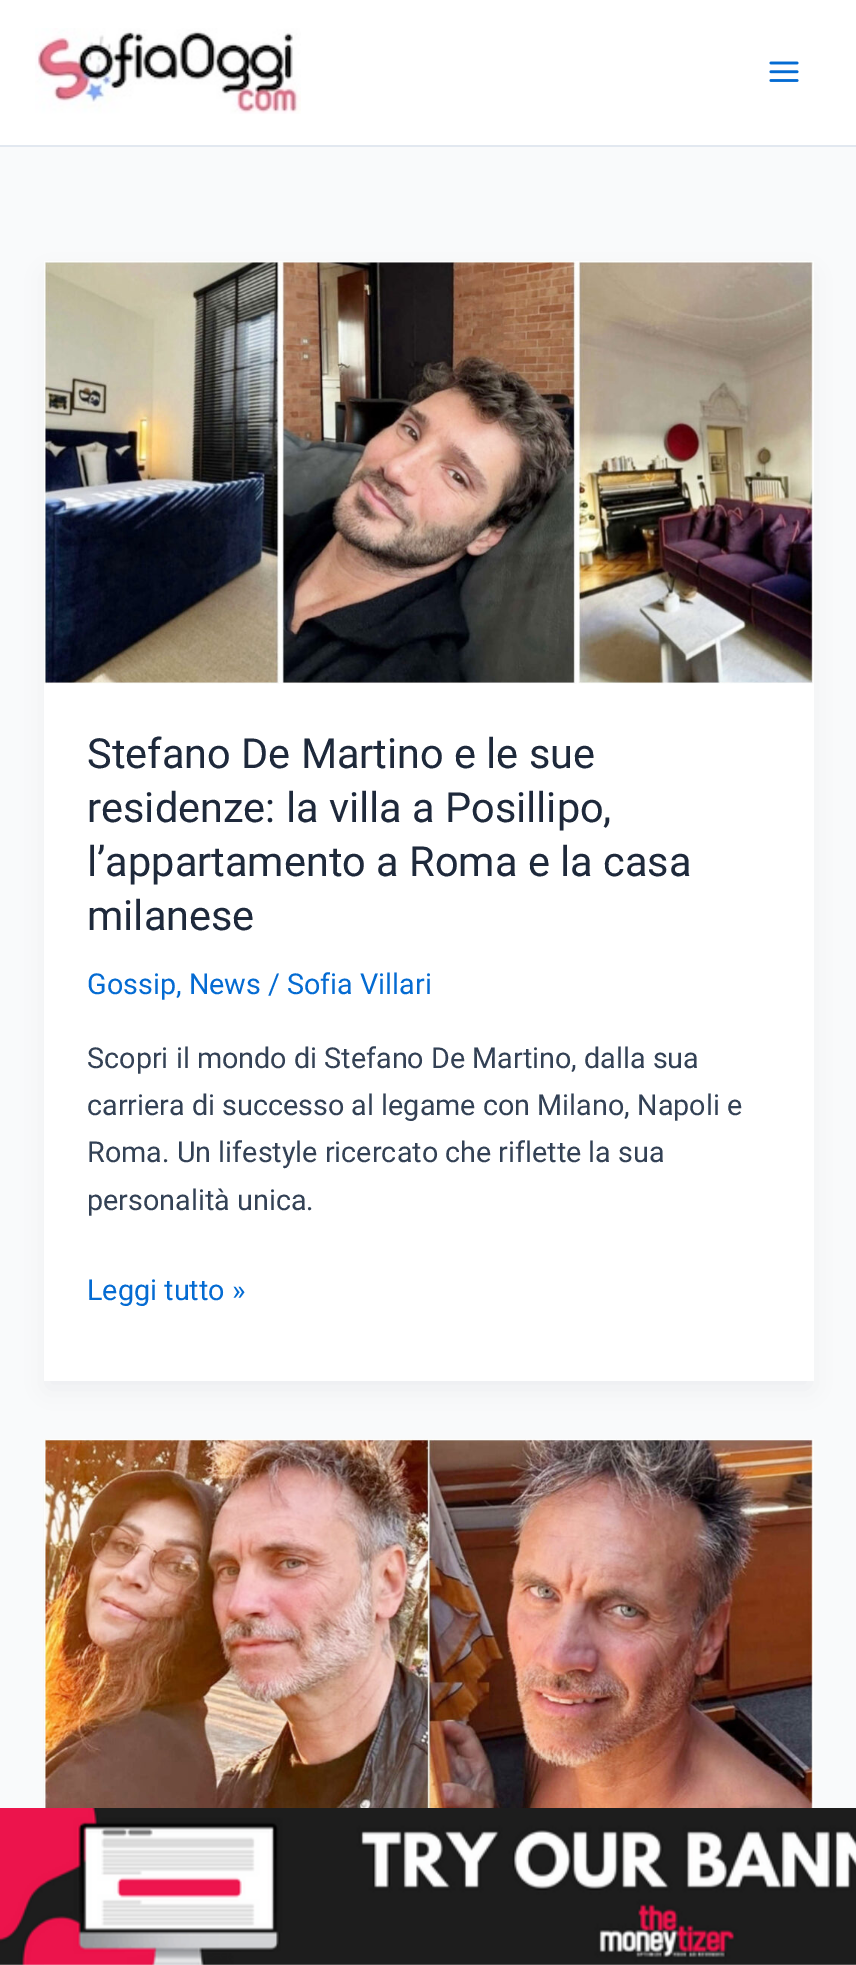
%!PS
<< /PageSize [856 1965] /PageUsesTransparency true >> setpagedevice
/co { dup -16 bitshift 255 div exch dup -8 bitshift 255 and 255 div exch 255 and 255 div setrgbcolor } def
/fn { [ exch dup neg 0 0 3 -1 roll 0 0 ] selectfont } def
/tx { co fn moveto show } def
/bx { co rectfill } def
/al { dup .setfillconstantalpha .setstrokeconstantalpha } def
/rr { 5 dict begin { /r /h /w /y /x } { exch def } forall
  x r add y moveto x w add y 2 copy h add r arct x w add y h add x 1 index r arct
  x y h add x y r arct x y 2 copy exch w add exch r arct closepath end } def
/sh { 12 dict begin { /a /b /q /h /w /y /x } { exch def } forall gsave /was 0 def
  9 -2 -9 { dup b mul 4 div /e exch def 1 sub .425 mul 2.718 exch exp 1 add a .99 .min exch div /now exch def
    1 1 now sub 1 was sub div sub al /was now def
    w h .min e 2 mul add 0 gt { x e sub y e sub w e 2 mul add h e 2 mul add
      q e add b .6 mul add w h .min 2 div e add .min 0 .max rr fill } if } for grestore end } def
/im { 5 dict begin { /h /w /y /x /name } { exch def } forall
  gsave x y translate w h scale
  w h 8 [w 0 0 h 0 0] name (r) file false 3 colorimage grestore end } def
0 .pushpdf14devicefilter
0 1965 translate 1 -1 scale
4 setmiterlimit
0 0 856 1965 16#F9FAFB bx
0 0 856 145 16#FFFFFF bx
0 145 856 2 16#E2E8F0 bx
(media/1.raw) 35 28 266 86 im
(media/2.raw) 769 61 30 21 im
16#101828 co
47 275 763 1113 0 13 .05 sh
44 261 770 1120 16#FFFFFF bx
(media/3.raw) 44 261 770 423 im
44 1439 770 526 16#FFFFFF bx
(media/4.raw) 43 1439 771 369 im
(media/5.raw) 0 1808 856 157 im
(Stefano De Martino e le sue) 87 768 /Roboto-Regular 41.5 16#1E293B tx
(residenze: la villa a Posillipo,) 87 822 /Roboto-Regular 41.5 16#1E293B tx
(l’appartamento a Roma e la casa) 87 876 /Roboto-Regular 41.5 16#1E293B tx
(milanese) 87 930 /Roboto-Regular 41.5 16#1E293B tx
(Gossip, News / Sofia Villari) 87 994 /Roboto-Regular 28.75 16#046BD2 tx
(Scopri il mondo di Stefano De Martino, dalla sua) 87 1068 /Roboto-Regular 28.75 16#334155 tx
(carriera di successo al legame con Milano, Napoli e) 87 1115 /Roboto-Regular 28.75 16#334155 tx
(Roma. Un lifestyle ricercato che riflette la sua) 87 1162 /Roboto-Regular 28.75 16#334155 tx
(personalità unica.) 87 1210 /Roboto-Regular 28.75 16#334155 tx
(Leggi tutto ») 87 1300 /Roboto-Regular 28.75 16#046BD2 tx
.poppdf14devicefilter showpage
